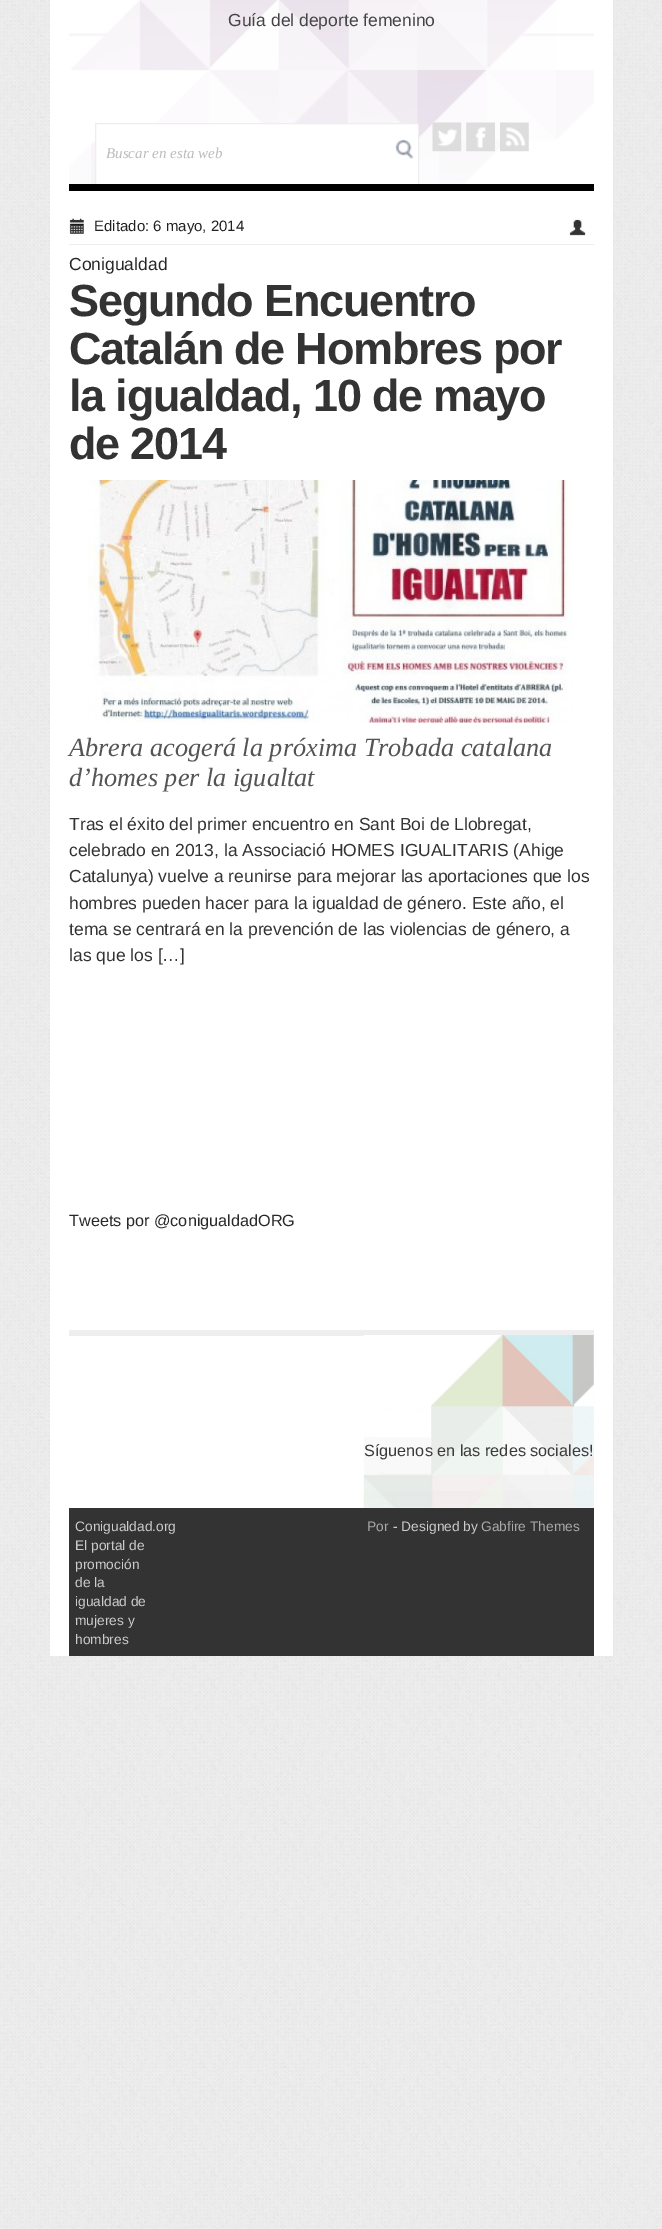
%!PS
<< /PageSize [662 2229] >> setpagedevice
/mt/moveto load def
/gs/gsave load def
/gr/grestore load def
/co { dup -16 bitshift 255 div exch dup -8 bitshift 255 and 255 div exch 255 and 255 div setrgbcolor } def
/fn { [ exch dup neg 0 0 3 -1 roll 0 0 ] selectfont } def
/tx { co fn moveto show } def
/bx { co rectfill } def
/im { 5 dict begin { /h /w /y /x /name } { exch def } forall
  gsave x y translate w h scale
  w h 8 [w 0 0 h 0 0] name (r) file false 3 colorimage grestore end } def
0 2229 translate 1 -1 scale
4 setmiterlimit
0 0 662 2229 16#FFFFFF bx
(media/1.raw) 0 0 662 2229 im
50 0 563 1656 16#FFFFFF bx
(media/2.raw) 69 0 525 184 im
96 124 322 60 16#FFFFFF bx
69 184 525 7 16#000000 bx
gs
69 35 525 149 rectclip
16#EEEEEE co
95.5 123.5 323 61 rectstroke
gr
(media/3.raw) 395 139 19 20 im
(media/4.raw) 432 122 30 30 im
(media/5.raw) 466 122 29 30 im
(media/6.raw) 500 122 29 30 im
69 244 525 1 16#EEEEEE bx
(media/7.raw) 69 218 15 16 im
(media/8.raw) 569 219 17 17 im
(media/9.raw) 88 480 485 243 im
69 1330 525 6 16#EEEEEE bx
364 1335 230 173 16#F6F6F6 bx
(media/10.raw) 363 1335 231 173 im
69 1508 525 148 16#333333 bx
(Guía del deporte femenino) 228 26 /LiberationSans-Regular 17.5 16#444444 tx
(Buscar en esta web) 106 158 /LiberationSerif-Italic 15 16#BCBCBC tx
(Editado: 6 mayo, 2014) 94 231 /LiberationSans-Regular 15 16#222222 tx
(Conigualdad) 69 270 /LiberationSans-Regular 17.5 16#292828 tx
/LiberationSans-Bold 45 fn
16#333333 co
69 316 mt -1.25 0 (Segundo Encuentro) ashow
69 364 mt -1.25 0 (Catalán de Hombres por) ashow
69 411 mt -1.25 0 (la igualdad, 10 de mayo) ashow
69 459 mt -1.25 0 (de 2014) ashow
(Abrera acogerá la próxima Trobada catalana) 69 756 /LiberationSerif-Italic 26.25 16#555555 tx
(d’homes per la igualtat) 69 786 /LiberationSerif-Italic 26.25 16#555555 tx
(Tras el éxito del primer encuentro en Sant Boi de Llobregat,) 69 830 /LiberationSans-Regular 17.5 16#333333 tx
(celebrado en 2013, la Associació HOMES IGUALITARIS \(Ahige) 69 856 /LiberationSans-Regular 17.5 16#333333 tx
(Catalunya\) vuelve a reunirse para mejorar las aportaciones que los) 69 882 /LiberationSans-Regular 17.5 16#333333 tx
(hombres pueden hacer para la igualdad de género. Este año, el) 69 909 /LiberationSans-Regular 17.5 16#333333 tx
(tema se centrará en la prevención de las violencias de género, a) 69 935 /LiberationSans-Regular 17.5 16#333333 tx
(las que los […]) 69 961 /LiberationSans-Regular 17.5 16#333333 tx
(Tweets por @conigualdadORG) 69 1226 /LiberationSans-Regular 16.25 16#292828 tx
(Síguenos en las redes sociales!) 364 1456 /LiberationSans-Regular 16.25 16#3B3B3B tx
(Conigualdad.org) 75 1531 /LiberationSans-Regular 13.75 16#CCCCCC tx
(El portal de) 75 1550 /LiberationSans-Regular 13.75 16#CCCCCC tx
(promoción) 75 1569 /LiberationSans-Regular 13.75 16#CCCCCC tx
(de la) 75 1587 /LiberationSans-Regular 13.75 16#CCCCCC tx
(igualdad de) 75 1606 /LiberationSans-Regular 13.75 16#CCCCCC tx
(mujeres y) 75 1625 /LiberationSans-Regular 13.75 16#CCCCCC tx
(hombres) 75 1644 /LiberationSans-Regular 13.75 16#CCCCCC tx
(Por) 367 1531 /LiberationSans-Regular 13.75 16#AAAAAA tx
(- Designed by) 393 1531 /LiberationSans-Regular 13.75 16#CCCCCC tx
(Gabfire Themes) 481 1531 /LiberationSans-Regular 13.75 16#AAAAAA tx
showpage
